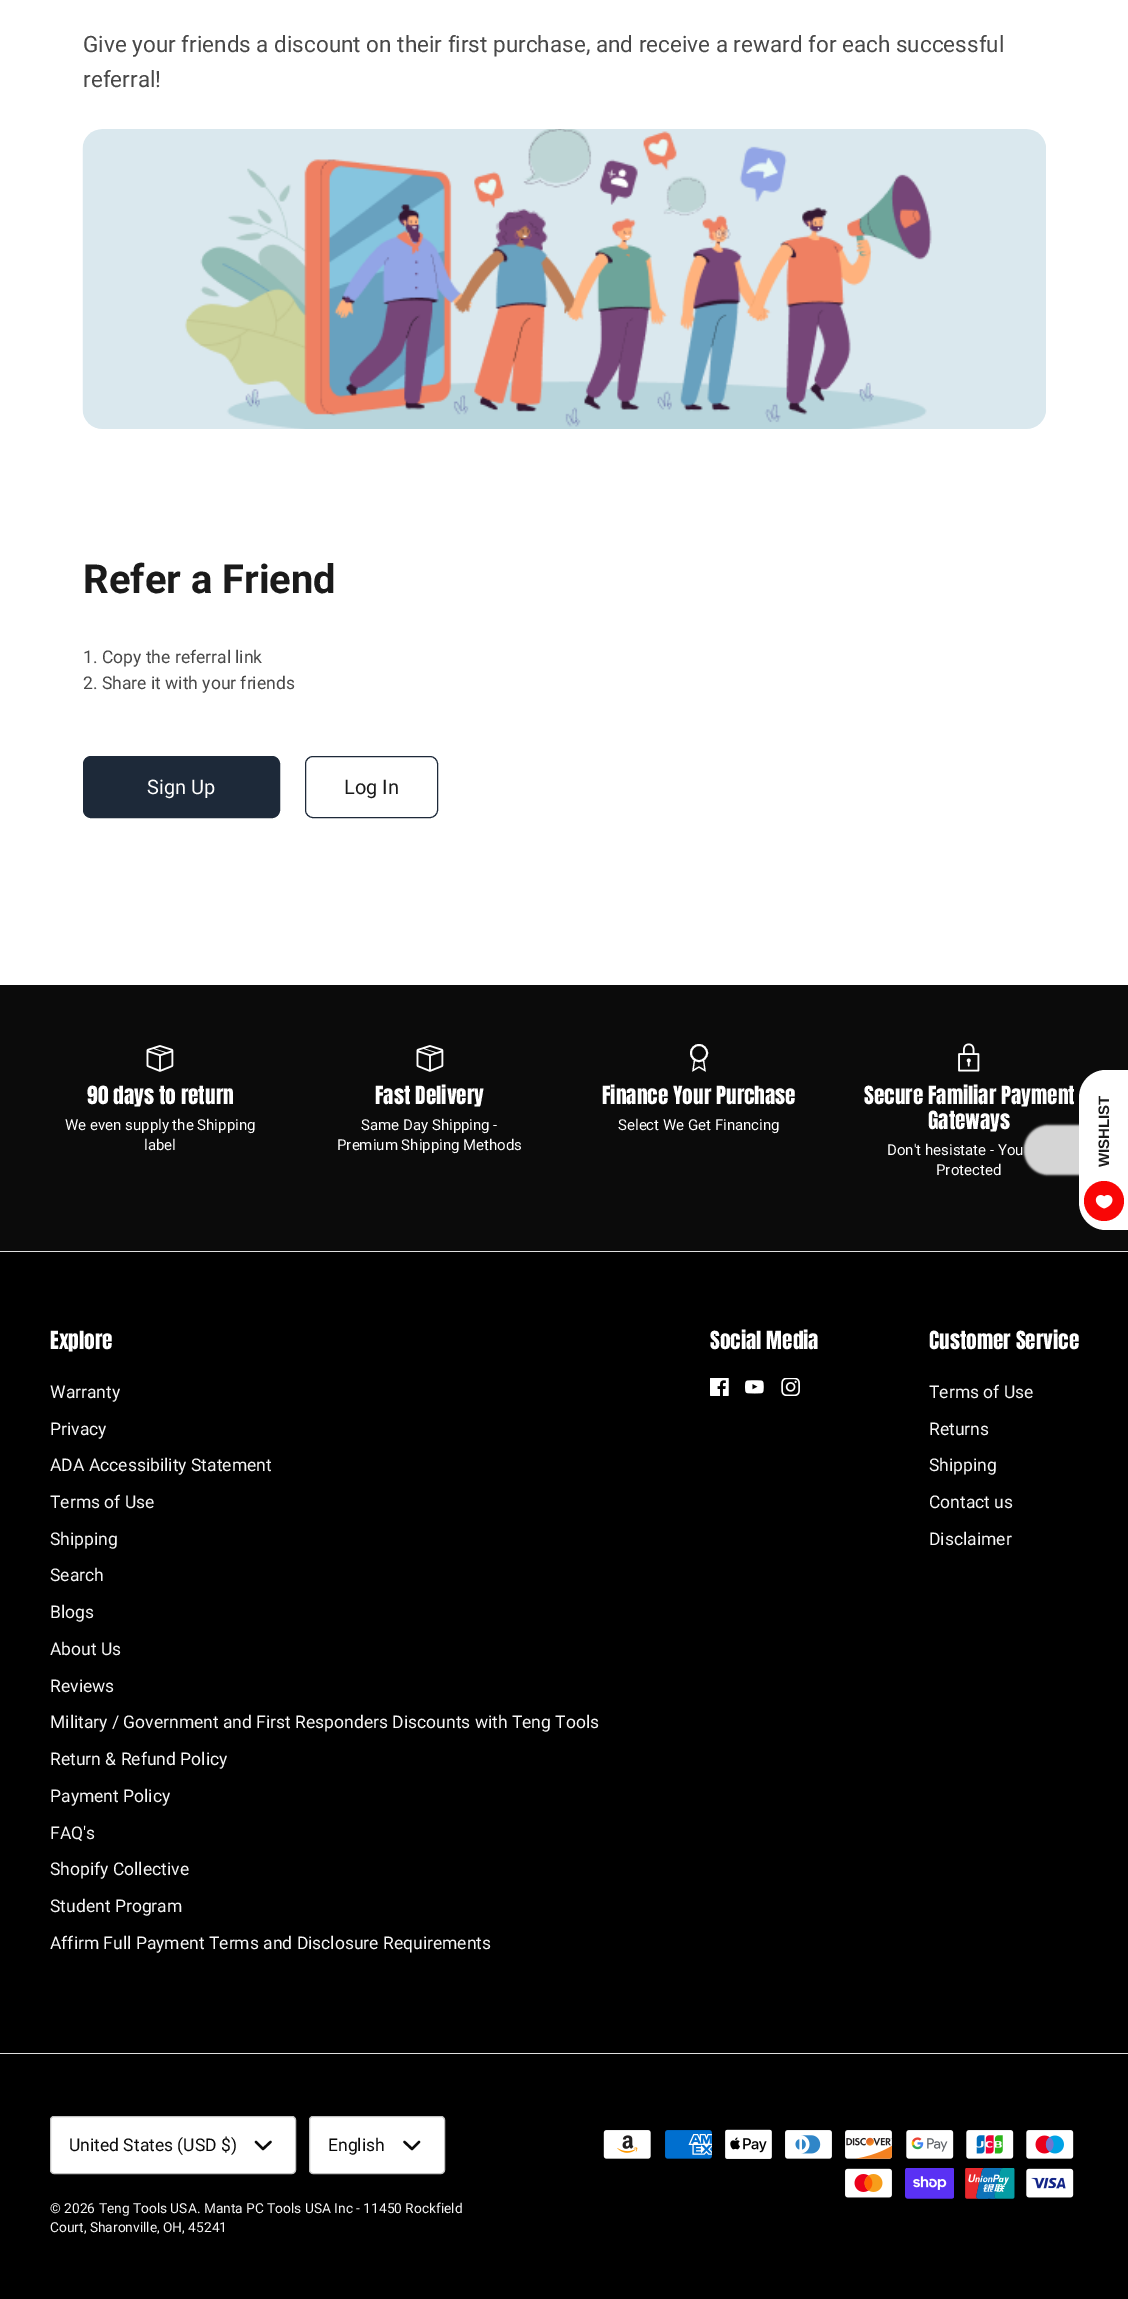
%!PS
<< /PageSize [1128 2299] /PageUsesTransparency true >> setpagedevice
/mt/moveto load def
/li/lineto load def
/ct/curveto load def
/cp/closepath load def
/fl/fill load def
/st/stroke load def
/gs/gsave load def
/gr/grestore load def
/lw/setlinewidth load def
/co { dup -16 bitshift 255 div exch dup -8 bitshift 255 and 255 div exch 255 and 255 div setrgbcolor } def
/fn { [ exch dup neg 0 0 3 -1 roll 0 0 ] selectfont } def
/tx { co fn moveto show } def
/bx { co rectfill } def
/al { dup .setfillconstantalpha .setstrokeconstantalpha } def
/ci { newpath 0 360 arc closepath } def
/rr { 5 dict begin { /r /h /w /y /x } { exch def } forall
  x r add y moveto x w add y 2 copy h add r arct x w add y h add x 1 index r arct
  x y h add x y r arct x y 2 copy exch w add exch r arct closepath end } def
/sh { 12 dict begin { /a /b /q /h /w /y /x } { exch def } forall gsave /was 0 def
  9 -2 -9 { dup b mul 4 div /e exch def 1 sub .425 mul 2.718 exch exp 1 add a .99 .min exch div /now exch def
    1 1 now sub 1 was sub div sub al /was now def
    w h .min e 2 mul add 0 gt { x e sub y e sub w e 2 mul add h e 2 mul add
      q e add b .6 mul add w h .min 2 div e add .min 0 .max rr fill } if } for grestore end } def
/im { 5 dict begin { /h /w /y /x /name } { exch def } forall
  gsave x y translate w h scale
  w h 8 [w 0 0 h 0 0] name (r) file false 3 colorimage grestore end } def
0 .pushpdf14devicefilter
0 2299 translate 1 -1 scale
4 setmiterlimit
0 0 1128 2299 16#FFFFFF bx
(media/1.raw) 82 129 964 300 im
16#1D2939 co
83.5 756.5 196 61 7.5 rr gs fl gr
st
305.5 756.5 132 61 7.5 rr st
0 1252 1128 1047 16#000000 bx
0 985 1128 266 16#0B0B0B bx
(media/2.raw) 146 1045 28 27 im
(media/2.raw) 416 1045 28 27 im
16#FFFFFF co
1.9 lw
699 1053 8 ci st
1.2 lw
694.5 1060 mt 693 1070.5 li 699 1067 li 705 1070.5 li 703.5 1060 li st
(media/3.raw) 958 1043 22 29 im
0 1251 1128 1 16#E0E0E0 bx
(media/4.raw) 710 1378 19 18 im
(media/5.raw) 745 1380 19 14 im
(media/6.raw) 781 1378 19 18 im
0 2053 1128 1 16#E0E0E0 bx
16#FFFFFF co
50.5 2116.5 245 57 3.5 rr gs fl gr
16#C2C2C2 co
1 lw
st
16#0B0B0B co
2.4 lw
1 setlinecap
1 setlinejoin
256 2142 mt 263 2149 li 270.5 2142 li st
16#FFFFFF co
309.5 2116.5 135 57 3.5 rr gs fl gr
16#C2C2C2 co
1 lw
0 setlinecap
0 setlinejoin
st
16#0B0B0B co
2.4 lw
1 setlinecap
1 setlinejoin
404.5 2142 mt 412 2149 li 419 2142 li st
(media/7.raw) 603 2130 48 29 im
(media/8.raw) 665 2130 47 29 im
(media/9.raw) 725 2129 47 30 im
(media/10.raw) 785 2130 47 29 im
(media/11.raw) 845 2130 47 29 im
(media/12.raw) 906 2130 48 29 im
(media/13.raw) 966 2130 48 29 im
(media/14.raw) 1026 2130 48 29 im
(media/15.raw) 845 2168 47 30 im
(media/16.raw) 905 2168 49 31 im
(media/17.raw) 965 2168 50 31 im
(media/18.raw) 1026 2168 48 30 im
16#DADADA co
1024 1125 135 50 28 1 1 sh
16#FFFFFF co
1079 1202 mt 1079 1098 li 1079 1082 1091 1070 1106 1070 ct 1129 1070 li 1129 1230 li 1106 1230 li 1091 1230 1079 1218 1079 1202 ct cp fl
16#F90606 co
1104 1201 20 ci fl
(media/19.raw) 1095 1195 18 14 im
(Give your friends a discount on their first purchase, and receive a reward for each successful) 83 52 /Roboto-Regular 22.5 16#484848 tx
(referral!) 83 87 /Roboto-Regular 22.5 16#484848 tx
(Refer a Friend) 83 593 /Roboto-Bold 40 16#1A1A1A tx
(1. Copy the referral link) 83 663 /Roboto-Regular 17.5 16#484848 tx
(2. Share it with your friends) 83 689 /Roboto-Regular 17.5 16#484848 tx
(Sign Up) 147 794 /Roboto-Regular 20 16#FFFFFF tx
(Log In) 344 794 /Roboto-Regular 20 16#1A1A1A tx
(90 days to return) 87 1104 /Anton-Regular 21.25 16#FFFFFF tx
(We even supply the Shipping) 65 1130 /Roboto-Regular 15 16#FFFFFF tx
(label) 144 1150 /Roboto-Regular 15 16#FFFFFF tx
(Fast Delivery) 375 1104 /Anton-Regular 21.25 16#FFFFFF tx
(Same Day Shipping -) 361 1130 /Roboto-Regular 15 16#FFFFFF tx
(Premium Shipping Methods) 337 1150 /Roboto-Regular 15 16#FFFFFF tx
(Finance Your Purchase) 602 1104 /Anton-Regular 21.25 16#FFFFFF tx
(Select We Get Financing) 618 1130 /Roboto-Regular 15 16#FFFFFF tx
(Secure Familiar Payment) 864 1104 /Anton-Regular 21.25 16#FFFFFF tx
(Gateways) 928 1129 /Anton-Regular 21.25 16#FFFFFF tx
(Don't hesistate - You) 887 1155 /Roboto-Regular 15 16#FFFFFF tx
(Protected) 936 1175 /Roboto-Regular 15 16#FFFFFF tx
(Explore) 50 1349 /Anton-Regular 21.25 16#FFFFFF tx
(Warranty) 50 1398 /Roboto-Regular 17.5 16#F6F6F6 tx
(Privacy) 50 1435 /Roboto-Regular 17.5 16#F6F6F6 tx
(ADA Accessibility Statement) 50 1471 /Roboto-Regular 17.5 16#F6F6F6 tx
(Terms of Use) 50 1508 /Roboto-Regular 17.5 16#F6F6F6 tx
(Shipping) 50 1545 /Roboto-Regular 17.5 16#F6F6F6 tx
(Search) 50 1581 /Roboto-Regular 17.5 16#F6F6F6 tx
(Blogs) 50 1618 /Roboto-Regular 17.5 16#F6F6F6 tx
(About Us) 50 1655 /Roboto-Regular 17.5 16#F6F6F6 tx
(Reviews) 50 1692 /Roboto-Regular 17.5 16#F6F6F6 tx
(Military / Government and First Responders Discounts with Teng Tools) 50 1728 /Roboto-Regular 17.5 16#F6F6F6 tx
(Return & Refund Policy) 50 1765 /Roboto-Regular 17.5 16#F6F6F6 tx
(Payment Policy) 50 1802 /Roboto-Regular 17.5 16#F6F6F6 tx
(FAQ's) 50 1839 /Roboto-Regular 17.5 16#F6F6F6 tx
(Shopify Collective) 50 1875 /Roboto-Regular 17.5 16#F6F6F6 tx
(Student Program) 50 1912 /Roboto-Regular 17.5 16#F6F6F6 tx
(Affirm Full Payment Terms and Disclosure Requirements) 50 1949 /Roboto-Regular 17.5 16#F6F6F6 tx
(Social Media) 710 1349 /Anton-Regular 21.25 16#FFFFFF tx
(Customer Service) 929 1349 /Anton-Regular 21.25 16#FFFFFF tx
(Terms of Use) 929 1398 /Roboto-Regular 17.5 16#F6F6F6 tx
(Returns) 929 1435 /Roboto-Regular 17.5 16#F6F6F6 tx
(Shipping) 929 1471 /Roboto-Regular 17.5 16#F6F6F6 tx
(Contact us) 929 1508 /Roboto-Regular 17.5 16#F6F6F6 tx
(Disclaimer) 929 1545 /Roboto-Regular 17.5 16#F6F6F6 tx
(United States \(USD $\)) 69 2151 /Roboto-Regular 17.5 16#0B0B0B tx
(English) 328 2151 /Roboto-Regular 17.5 16#0B0B0B tx
(© 2026 Teng Tools USA. Manta PC Tools USA Inc - 11450 Rockfield) 50 2213 /Roboto-Regular 13.75 16#F6F6F6 tx
(Court, Sharonville, OH, 45241) 50 2232 /Roboto-Regular 13.75 16#F6F6F6 tx
/LiberationSans-Bold 15 fn
16#1A1A1A co
gs 1109 1167 translate -90 rotate 0 0 mt (WISHLIST) show gr
.poppdf14devicefilter showpage
